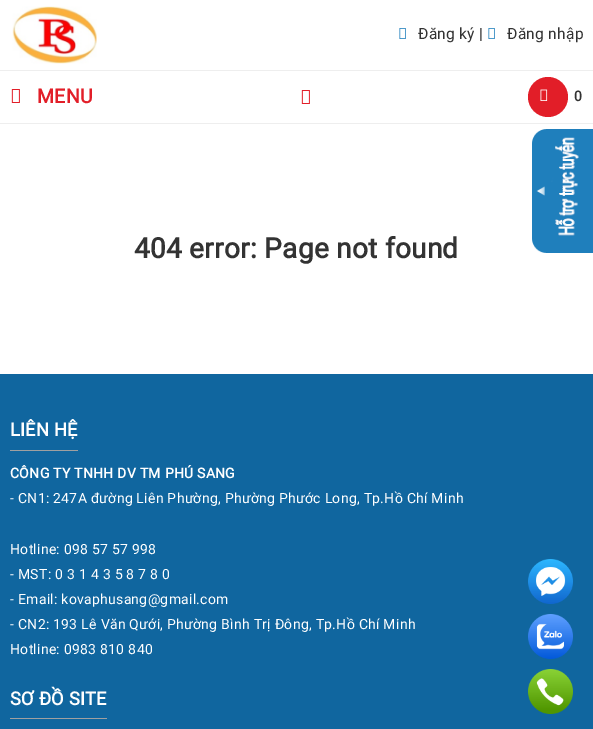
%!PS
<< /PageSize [593 729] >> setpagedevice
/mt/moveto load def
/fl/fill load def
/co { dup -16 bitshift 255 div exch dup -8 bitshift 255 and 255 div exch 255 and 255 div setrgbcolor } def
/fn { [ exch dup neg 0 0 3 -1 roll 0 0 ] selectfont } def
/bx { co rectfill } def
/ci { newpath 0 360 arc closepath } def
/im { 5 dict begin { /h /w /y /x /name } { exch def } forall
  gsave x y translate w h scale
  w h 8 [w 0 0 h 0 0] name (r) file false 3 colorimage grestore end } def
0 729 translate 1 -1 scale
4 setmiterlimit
0 0 593 729 16#FFFFFF bx
(media/1.raw) 12 6 85 58 im
(media/2.raw) 399 28 7 11 im
(media/2.raw) 488 28 7 11 im
0 70 593 1 16#EEEEEE bx
0 123 593 1 16#EEEEEE bx
(media/3.raw) 11 89 9 14 im
(media/3.raw) 301 90 9 14 im
16#E21E28 co
548 97 20 ci fl
(media/4.raw) 540 89 8 12 im
0 374 593 355 16#10669F bx
10 450 68 1 16#A0A0A0 bx
10 718 97 1 16#A0A0A0 bx
(media/5.raw) 532 129 61 124 im
(media/6.raw) 528 559 45 45 im
(media/7.raw) 528 614 45 45 im
(media/8.raw) 528 669 45 45 im
/Roboto-Regular 15.5 fn
16#333333 co
418 39 mt .28 0 (Đăng ký |) ashow
507 39 mt .28 0 (Đăng nhập) ashow
/Roboto-Bold 19.5 fn
16#E21E28 co
37 103 mt .28 0 (MENU) ashow
/Roboto-Bold 14 fn
16#333333 co
574 101 mt .28 0 (0) ashow
/Roboto-Bold 28 fn
134 258 mt .28 0 (404 error: Page not found) ashow
/Roboto-Bold 18.25 fn
16#FFFFFF co
10 436 mt .28 0 (LIÊN HỆ) ashow
/Roboto-Bold 14 fn
10 478 mt .28 0 (CÔNG TY TNHH DV TM PHÚ SANG) ashow
/Roboto-Regular 14 fn
10 503 mt .28 0 (- CN1: 247A đường Liên Phường, Phường Phước Long, Tp.Hồ Chí Minh) ashow
10 554 mt .28 0 (Hotline: 098 57 57 998) ashow
10 579 mt .28 0 (- MST: 0 3 1 4 3 5 8 7 8 0) ashow
10 604 mt .28 0 (- Email: kovaphusang@gmail.com) ashow
10 629 mt .28 0 (- CN2: 193 Lê Văn Qưới, Phường Bình Trị Đông, Tp.Hồ Chí Minh) ashow
10 654 mt .28 0 (Hotline: 0983 810 840) ashow
/Roboto-Bold 18.25 fn
10 705 mt .28 0 (SƠ ĐỒ SITE) ashow
showpage
